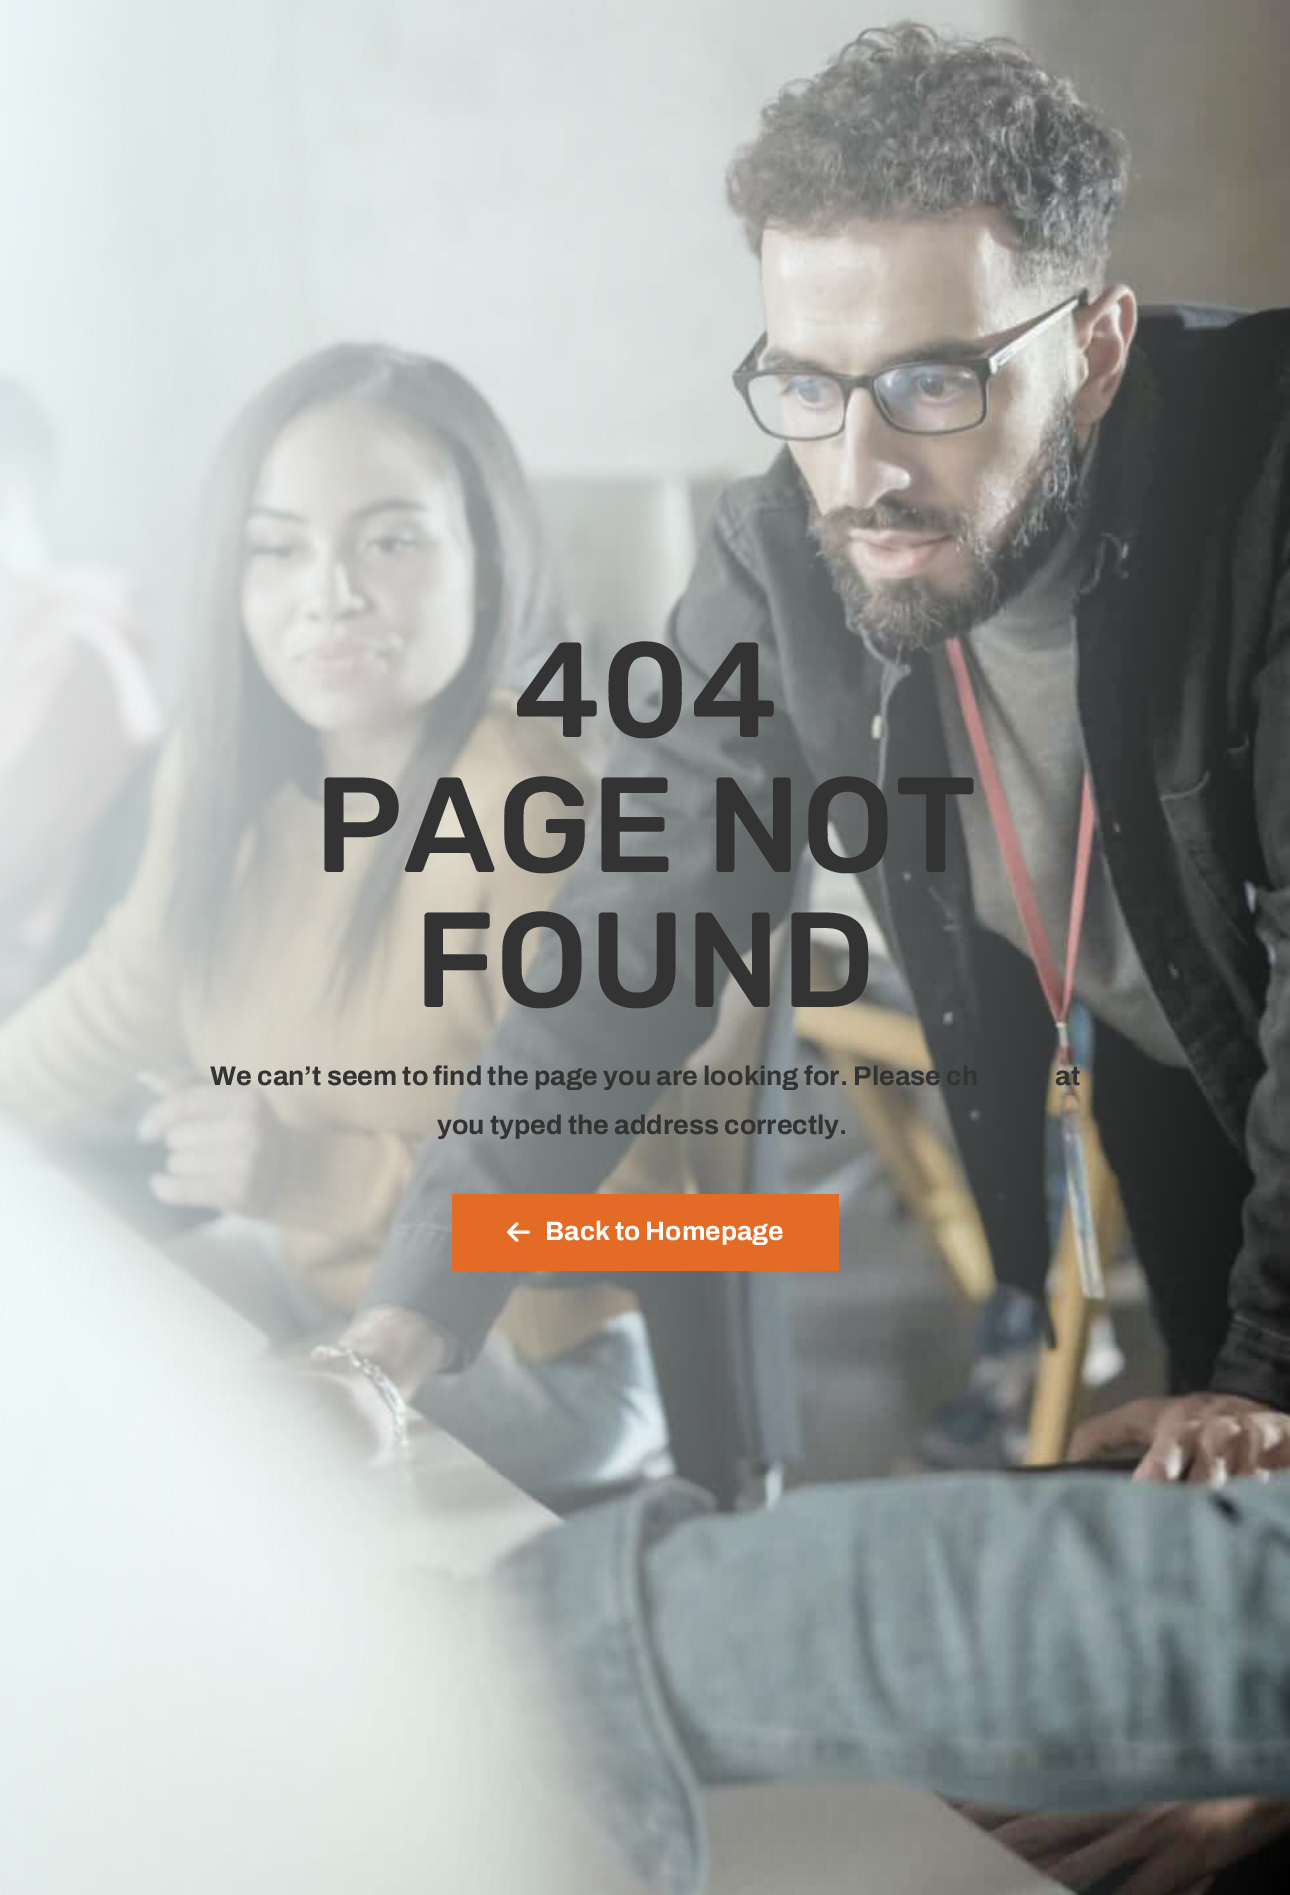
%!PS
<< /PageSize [1290 1895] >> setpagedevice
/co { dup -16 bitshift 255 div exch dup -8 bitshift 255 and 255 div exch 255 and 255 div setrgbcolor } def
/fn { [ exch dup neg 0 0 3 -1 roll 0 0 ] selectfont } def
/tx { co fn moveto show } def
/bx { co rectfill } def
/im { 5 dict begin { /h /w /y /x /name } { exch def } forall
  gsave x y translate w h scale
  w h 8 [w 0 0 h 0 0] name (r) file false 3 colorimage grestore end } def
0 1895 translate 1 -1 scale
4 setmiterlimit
0 0 1290 1895 16#FFFFFF bx
(media/1.raw) 0 0 1290 1895 im
452 1194 387 77 16#E36B25 bx
(media/2.raw) 507 1222 24 20 im
(404) 513 737 /Rubik-Medium 135 16#333333 tx
(PAGE NOT) 314 872 /Rubik-Medium 135 16#333333 tx
(FOUND) 414 1007 /Rubik-Medium 135 16#333333 tx
(We can’t seem to find the page you are looking for. Please ch) 210 1085 /Archivo-Bold 27 16#333333 tx
(at) 1055 1085 /Archivo-Bold 27 16#333333 tx
(you typed the address correctly.) 437 1134 /Archivo-Bold 27 16#333333 tx
(Back to Homepage) 545 1240 /Archivo-Bold 26.5 16#FFFFFF tx
showpage
